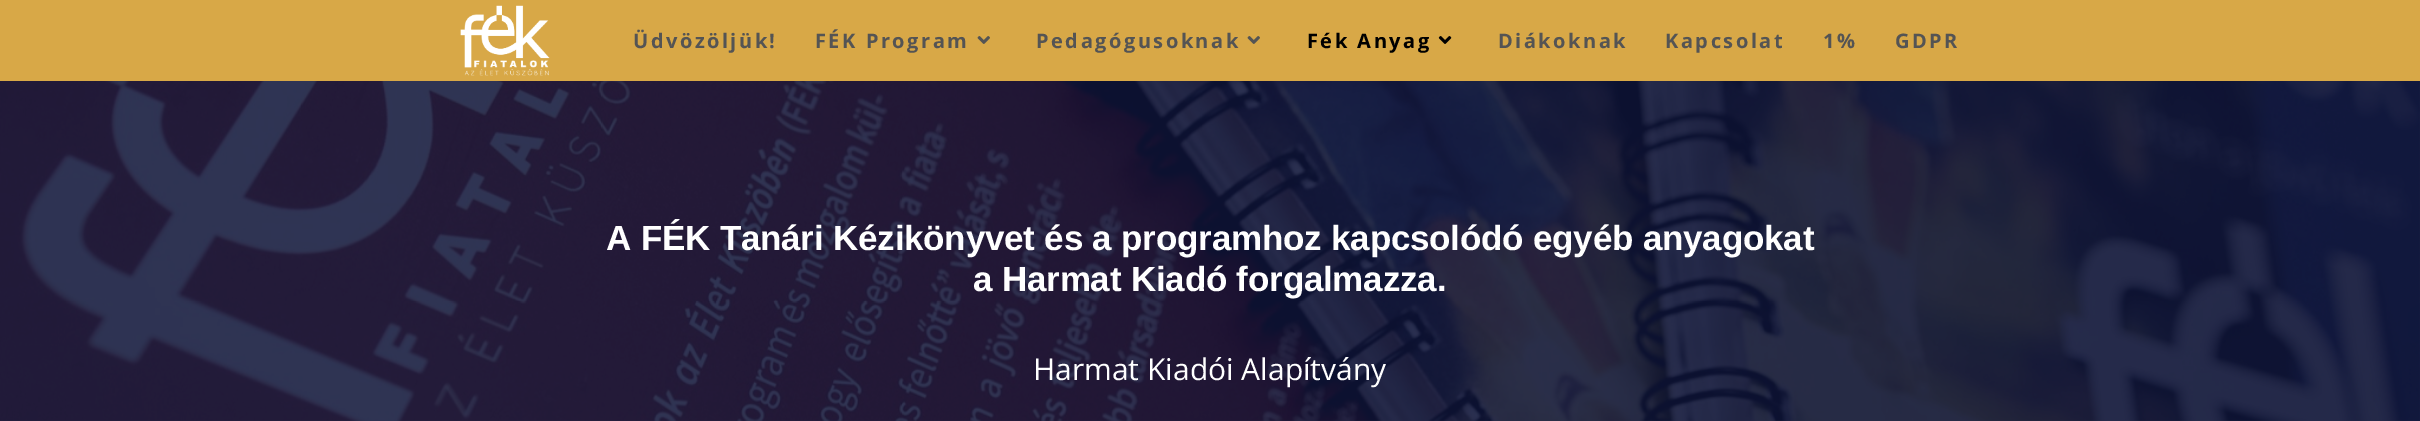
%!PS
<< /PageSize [2420 421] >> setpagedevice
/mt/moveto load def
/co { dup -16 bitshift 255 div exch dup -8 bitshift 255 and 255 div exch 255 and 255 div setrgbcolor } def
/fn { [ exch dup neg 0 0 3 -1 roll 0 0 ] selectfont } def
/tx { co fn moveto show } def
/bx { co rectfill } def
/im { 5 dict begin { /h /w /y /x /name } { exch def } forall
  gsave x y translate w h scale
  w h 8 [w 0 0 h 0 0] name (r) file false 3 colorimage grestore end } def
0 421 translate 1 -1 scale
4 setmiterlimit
0 0 2420 421 16#FFFFFF bx
0 0 2420 81 16#D8A847 bx
(media/1.raw) 460 5 90 71 im
(media/2.raw) 977 36 13 8 im
(media/2.raw) 1247 36 13 8 im
(media/3.raw) 1438 36 14 8 im
(media/4.raw) 0 81 2420 340 im
/OpenSans-Bold 20 fn
16#545454 co
633 48 mt 2.5 0 (Üdvözöljük!) ashow
815 48 mt 2.5 0 (FÉK Program) ashow
1036 48 mt 2.5 0 (Pedagógusoknak) ashow
16#000000 co
1307 48 mt 2.5 0 (Fék Anyag) ashow
16#545454 co
1498 48 mt 2.5 0 (Diákoknak) ashow
1665 48 mt 2.5 0 (Kapcsolat) ashow
1823 48 mt 2.5 0 (1%) ashow
1895 48 mt 2.5 0 (GDPR) ashow
/LiberationSans-Bold 35 fn
16#FFFFFF co
606 250 mt -.2 0 (A FÉK Tanári Kézikönyvet és a programhoz kapcsolódó egyéb anyagokat) ashow
973 291 mt -.2 0 (a Harmat Kiadó forgalmazza.) ashow
(Harmat Kiadói Alapítvány) 1033 380 /OpenSans-Regular 30 16#FFFFFF tx
showpage
